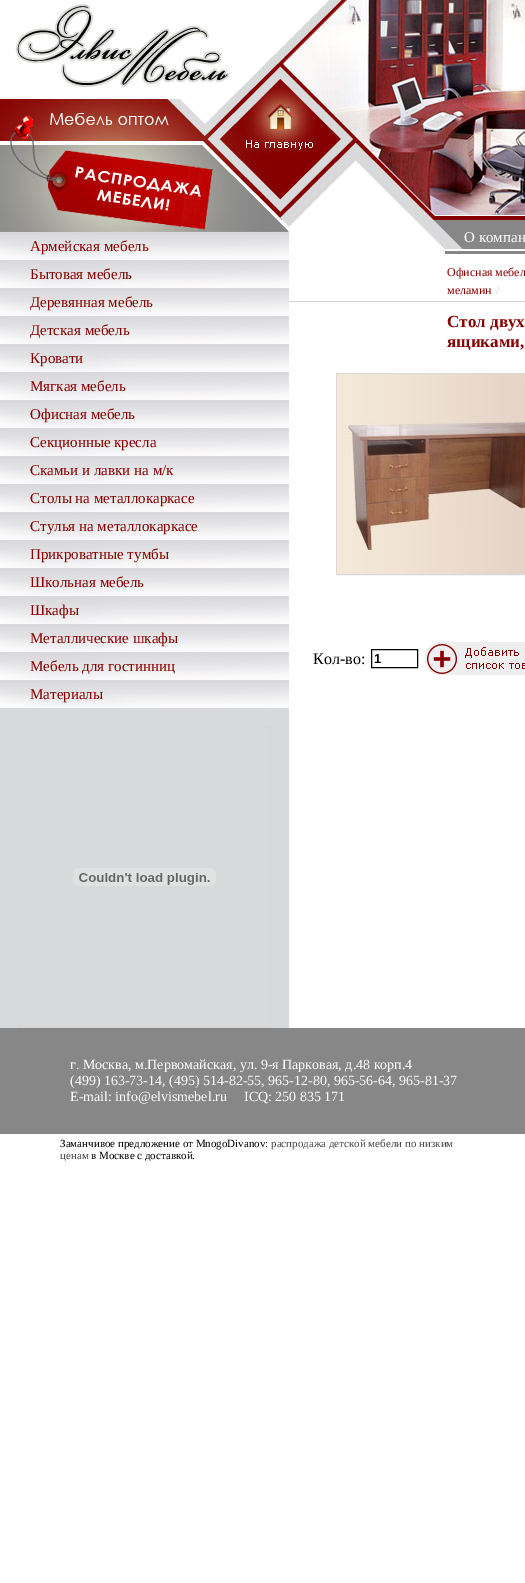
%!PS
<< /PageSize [525 1583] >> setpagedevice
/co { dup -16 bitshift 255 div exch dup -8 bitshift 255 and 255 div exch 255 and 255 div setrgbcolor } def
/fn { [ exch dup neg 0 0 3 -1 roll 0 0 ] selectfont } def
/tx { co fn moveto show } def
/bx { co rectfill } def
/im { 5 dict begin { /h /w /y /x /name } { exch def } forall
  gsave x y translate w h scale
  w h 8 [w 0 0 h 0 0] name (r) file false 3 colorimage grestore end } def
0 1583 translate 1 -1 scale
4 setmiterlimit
0 0 525 1583 16#FFFFFF bx
(media/1.raw) 0 0 525 220 im
0 232 289 796 16#D8D9DA bx
(media/2.raw) 0 220 289 12 im
(media/3.raw) 0 235 289 25 im
(media/3.raw) 0 263 289 25 im
(media/3.raw) 0 291 289 25 im
(media/3.raw) 0 319 289 25 im
(media/3.raw) 0 347 289 25 im
(media/3.raw) 0 375 289 25 im
(media/3.raw) 0 403 289 25 im
(media/3.raw) 0 431 289 25 im
(media/3.raw) 0 459 289 25 im
(media/3.raw) 0 487 289 25 im
(media/3.raw) 0 515 289 25 im
(media/3.raw) 0 543 289 25 im
(media/3.raw) 0 571 289 25 im
(media/3.raw) 0 599 289 25 im
(media/3.raw) 0 627 289 25 im
(media/3.raw) 0 655 289 25 im
(media/3.raw) 0 683 289 25 im
16#D6D6D6 co
19.5 726.5 251 301 rectstroke
(media/4.raw) 73 868 143 18 im
(media/5.raw) 289 220 175 34 im
(media/6.raw) 464 220 61 34 im
289 301 236 1 16#D4D4D4 bx
16#D8D9DA co
336.5 373.5 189 201 rectstroke
(media/7.raw) 337 374 188 200 im
16#000000 co
371.5 649.5 46 18 rectstroke
(media/8.raw) 425 642 100 33 im
0 1028 525 106 16#878787 bx
(Армейская мебель) 30 251 /LiberationSerif-Regular 15 16#860001 tx
(Бытовая мебель) 30 279 /LiberationSerif-Regular 15 16#860001 tx
(Деревянная мебель) 30 307 /LiberationSerif-Regular 15 16#860001 tx
(Детская мебель) 30 335 /LiberationSerif-Regular 15 16#860001 tx
(Кровати) 30 363 /LiberationSerif-Regular 15 16#860001 tx
(Мягкая мебель) 30 391 /LiberationSerif-Regular 15 16#860001 tx
(Офисная мебель) 30 419 /LiberationSerif-Regular 15 16#860001 tx
(Секционные кресла) 30 447 /LiberationSerif-Regular 15 16#860001 tx
(Скамьи и лавки на м/к) 30 475 /LiberationSerif-Regular 15 16#860001 tx
(Столы на металлокаркасе) 30 503 /LiberationSerif-Regular 15 16#860001 tx
(Стулья на металлокаркасе) 30 531 /LiberationSerif-Regular 15 16#860001 tx
(Прикроватные тумбы) 30 559 /LiberationSerif-Regular 15 16#860001 tx
(Школьная мебель) 30 587 /LiberationSerif-Regular 15 16#860001 tx
(Шкафы) 30 615 /LiberationSerif-Regular 15 16#860001 tx
(Металлические шкафы) 30 643 /LiberationSerif-Regular 15 16#860001 tx
(Мебель для гостинниц) 30 671 /LiberationSerif-Regular 15 16#860001 tx
(Материалы) 30 699 /LiberationSerif-Regular 15 16#860001 tx
(О компан) 464 242 /LiberationSerif-Regular 15 16#FFFFFF tx
(Офисная мебел) 447 276 /LiberationSerif-Regular 12 16#860001 tx
(меламин) 447 294 /LiberationSerif-Regular 12 16#860001 tx
(/) 496 294 /LiberationSerif-Regular 12 16#D4D4D4 tx
(Стол двух) 447 327 /LiberationSerif-Bold 17 16#860001 tx
(ящиками,) 447 347 /LiberationSerif-Bold 17 16#860001 tx
(Кол-во:) 313 664 /LiberationSerif-Regular 16 16#000000 tx
(1) 374 663 /LiberationSans-Bold 13 16#000000 tx
(г. Москва, м.Первомайская, ул. 9-я Парковая, д.48 корп.4) 70 1069 /LiberationSerif-Regular 14 16#FFFFFF tx
(\(499\) 163-73-14, \(495\) 514-82-55, 965-12-80, 965-56-64, 965-81-37) 70 1085 /LiberationSerif-Regular 14 16#FFFFFF tx
(E-mail: info@elvismebel.ru) 70 1101 /LiberationSerif-Regular 14 16#FFFFFF tx
(ICQ: 250 835 171) 244 1101 /LiberationSerif-Regular 14 16#FFFFFF tx
(Заманчивое предложение от MnogoDivanov:) 60 1147 /LiberationSerif-Regular 11 16#000000 tx
(распродажа детской мебели по низким) 271 1147 /LiberationSerif-Regular 11 16#494949 tx
(ценам) 60 1159 /LiberationSerif-Regular 11 16#494949 tx
(в Москве с доставкой.) 91 1159 /LiberationSerif-Regular 11 16#000000 tx
showpage
